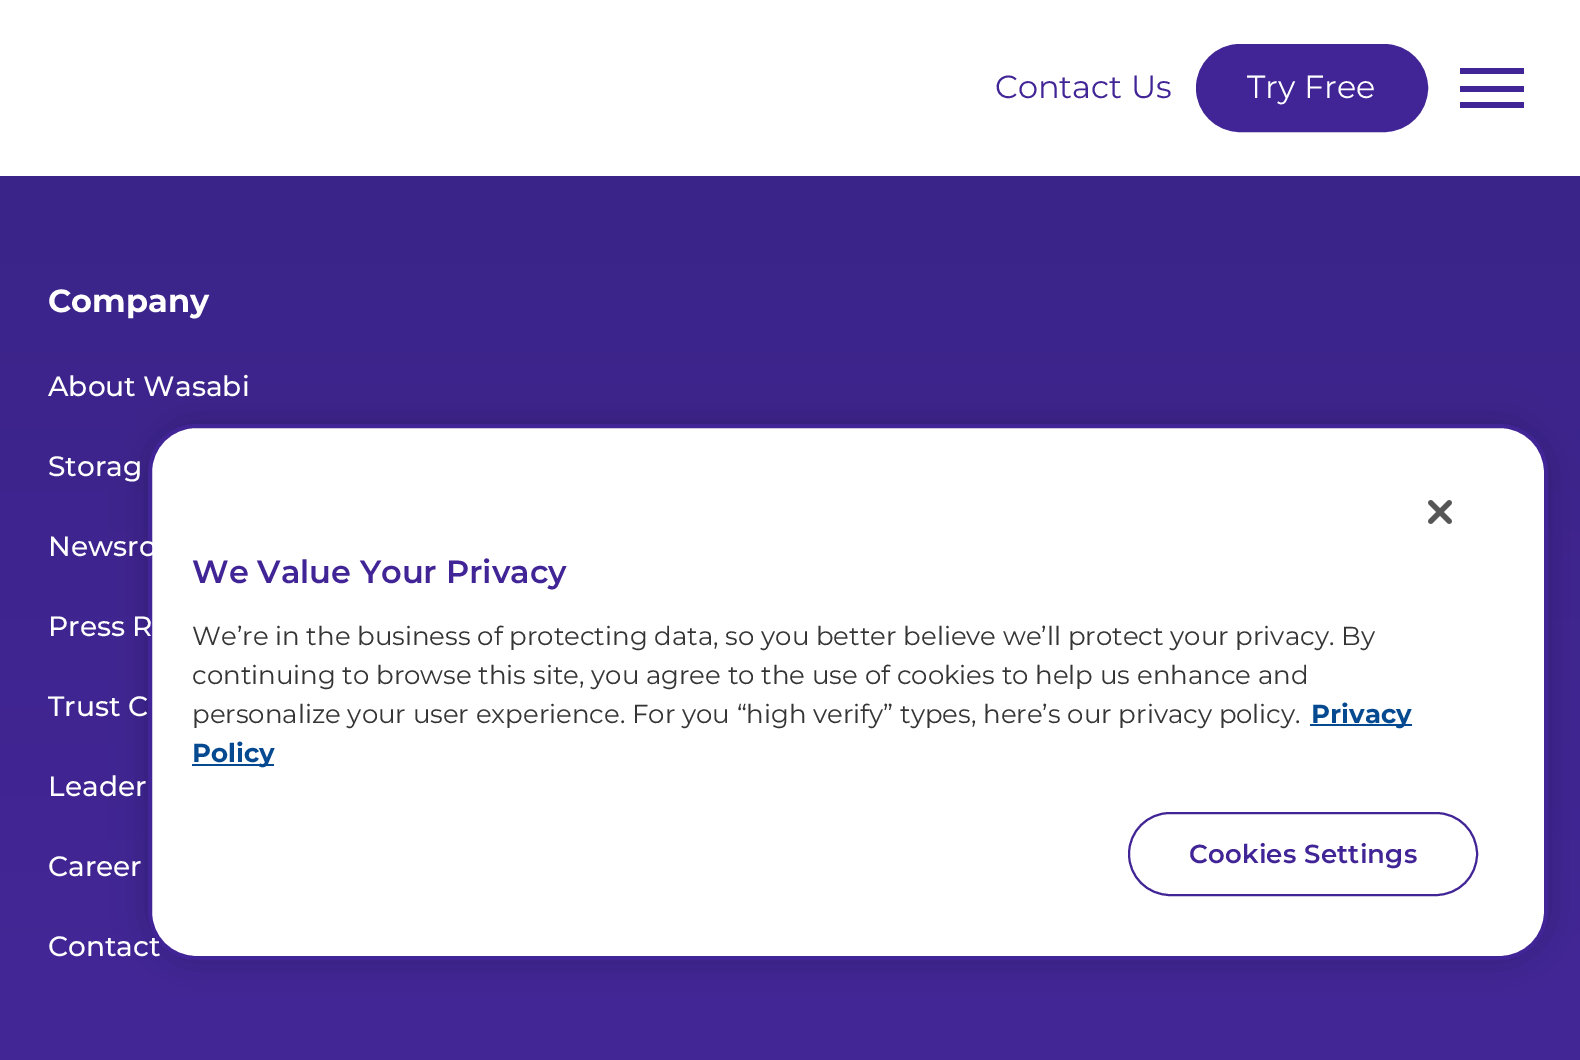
%!PS
<< /PageSize [1580 1060] /PageUsesTransparency true >> setpagedevice
/mt/moveto load def
/li/lineto load def
/cp/closepath load def
/fl/fill load def
/st/stroke load def
/gs/gsave load def
/gr/grestore load def
/lw/setlinewidth load def
/co { dup -16 bitshift 255 div exch dup -8 bitshift 255 and 255 div exch 255 and 255 div setrgbcolor } def
/fn { [ exch dup neg 0 0 3 -1 roll 0 0 ] selectfont } def
/tx { co fn moveto show } def
/bx { co rectfill } def
/al { dup .setfillconstantalpha .setstrokeconstantalpha } def
/rr { 5 dict begin { /r /h /w /y /x } { exch def } forall
  x r add y moveto x w add y 2 copy h add r arct x w add y h add x 1 index r arct
  x y h add x y r arct x y 2 copy exch w add exch r arct closepath end } def
/sh { 12 dict begin { /a /b /q /h /w /y /x } { exch def } forall gsave /was 0 def
  9 -2 -9 { dup b mul 4 div /e exch def 1 sub .425 mul 2.718 exch exp 1 add a .99 .min exch div /now exch def
    1 1 now sub 1 was sub div sub al /was now def
    w h .min e 2 mul add 0 gt { x e sub y e sub w e 2 mul add h e 2 mul add
      q e add b .6 mul add w h .min 2 div e add .min 0 .max rr fill } if } for grestore end } def
/im { 5 dict begin { /h /w /y /x /name } { exch def } forall
  gsave x y translate w h scale
  w h 8 [w 0 0 h 0 0] name (r) file false 3 colorimage grestore end } def
0 .pushpdf14devicefilter
0 1060 translate 1 -1 scale
4 setmiterlimit
0 0 1580 1060 16#FFFFFF bx
16#412496 co
1198 46 228 84 42 rr gs fl gr
4 lw
st
1460 68 64 6 16#412496 bx
1460 86 64 6 16#412496 bx
1460 102 64 6 16#412496 bx
gs 0 176 mt 1580 176 li 1580 1060 li 0 1060 li cp clip newpath
<< /ShadingType 2 /ColorSpace /DeviceRGB /Coords [790 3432 790 176] /Extend [true true] /Function << /FunctionType 2 /Domain [0 1] /C0 [.376 .184 .733] /C1 [.227 .141 .537] /N 1 >> >> shfill gr
16#000000 co
148 424 1400 536 48 18 .2 sh
16#FFFFFF co
150 426 1396 532 46 rr gs fl gr
16#412496 co
st
(media/1.raw) 1428 500 24 24 im
1310 724 102 2 16#054A91 bx
192 764 82 2 16#054A91 bx
16#412496 co
2 lw
1129 813 348 82 41 rr st
(Contact Us) 995 98 /Montserrat-Regular 32 16#412496 tx
(Try Free) 1247 98 /Montserrat-Regular 32 16#FFFFFF tx
(Company) 48 312 /Montserrat-Bold 32 16#FFFFFF tx
(About Wasabi) 48 396 /Montserrat-Medium 28 16#FFFFFF tx
(Storag) 48 476 /Montserrat-Medium 28 16#FFFFFF tx
(Newsro) 48 556 /Montserrat-Medium 28 16#FFFFFF tx
(Press R) 48 636 /Montserrat-Medium 28 16#FFFFFF tx
(Trust C) 48 716 /Montserrat-Medium 28 16#FFFFFF tx
(Leader) 48 796 /Montserrat-Medium 28 16#FFFFFF tx
(Career) 48 876 /Montserrat-Medium 28 16#FFFFFF tx
(Contact) 48 956 /Montserrat-Medium 28 16#FFFFFF tx
(We Value Your Privacy) 192 583 /Montserrat-SemiBold 32 16#412496 tx
(We’re in the business of protecting data, so you better believe we’ll protect your privacy. By) 192 645 /Montserrat-Regular 26 16#353535 tx
(continuing to browse this site, you agree to the use of cookies to help us enhance and) 192 684 /Montserrat-Regular 26 16#353535 tx
(personalize your user experience. For you “high verify” types, here’s our privacy policy.) 192 723 /Montserrat-Regular 26 16#353535 tx
(Privacy) 1311 723 /Montserrat-Bold 26 16#054A91 tx
(Policy) 192 762 /Montserrat-Bold 26 16#054A91 tx
/Montserrat-SemiBold 26 fn
16#412496 co
1189 863 mt .25 0 (Cookies Settings) ashow
.poppdf14devicefilter showpage
